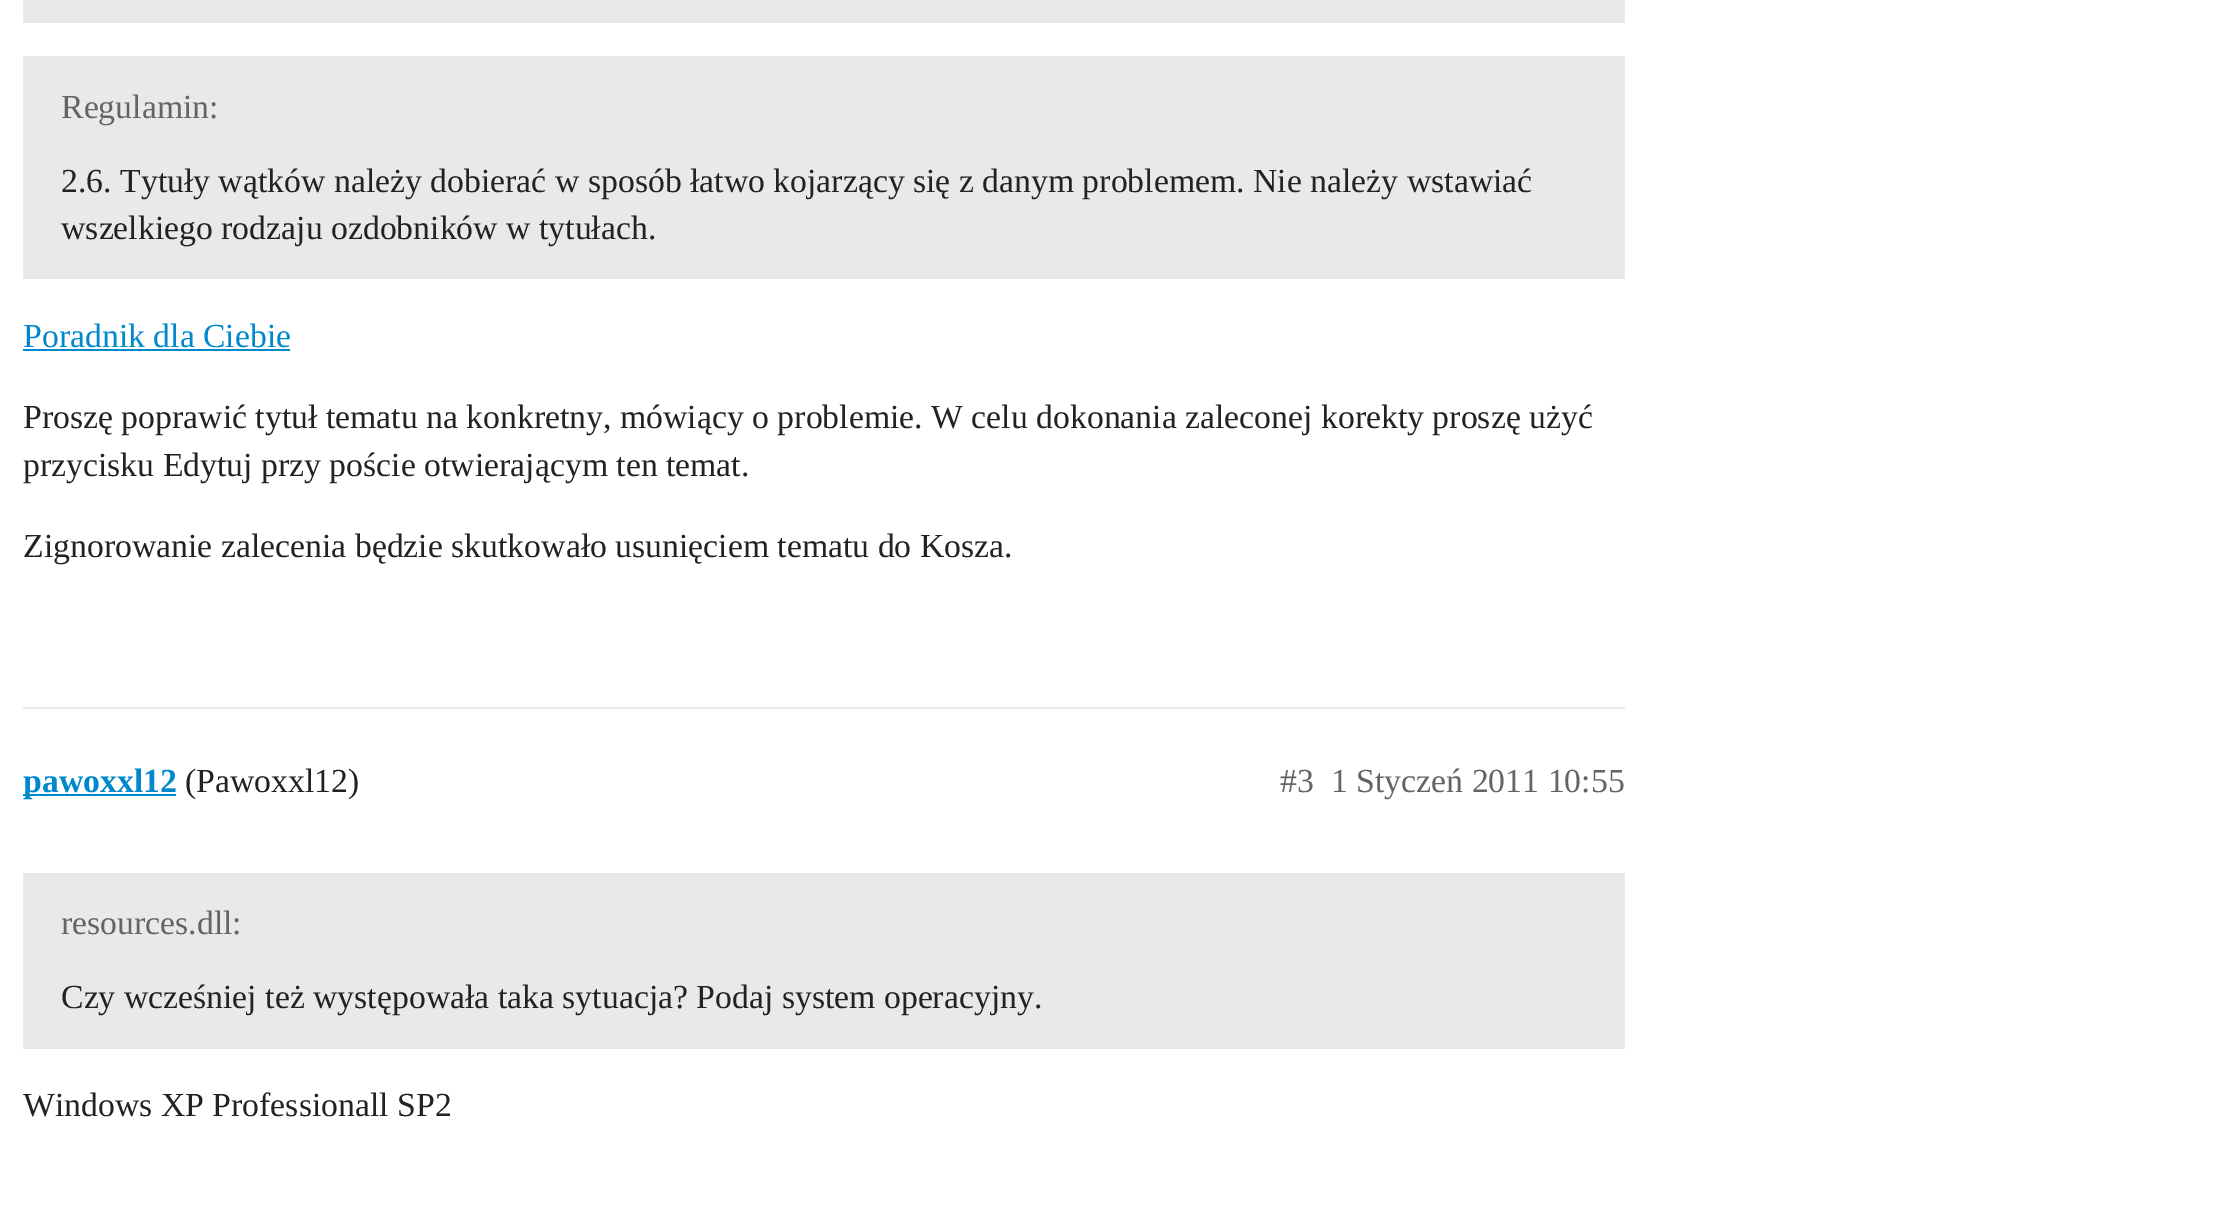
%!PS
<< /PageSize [2238 1230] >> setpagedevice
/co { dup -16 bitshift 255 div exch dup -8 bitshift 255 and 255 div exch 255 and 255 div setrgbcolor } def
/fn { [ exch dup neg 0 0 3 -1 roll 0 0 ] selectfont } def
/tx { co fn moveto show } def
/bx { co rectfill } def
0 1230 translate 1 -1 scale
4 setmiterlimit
0 0 2238 1230 16#FFFFFF bx
23 0 1602 23 16#E9E9E9 bx
23 56 1602 223 16#E9E9E9 bx
23 349 267 2 16#0088CC bx
23 707 1602 2 16#E9E9E9 bx
23 794 153 2 16#0088CC bx
23 873 1602 176 16#E9E9E9 bx
(Regulamin:) 61 118 /LiberationSerif-Regular 33.75 16#646464 tx
(2.6. Tytuły wątków należy dobierać w sposób łatwo kojarzący się z danym problemem. Nie należy wstawiać) 61 192 /LiberationSerif-Regular 33.75 16#222222 tx
(wszelkiego rodzaju ozdobników w tytułach.) 61 239 /LiberationSerif-Regular 33.75 16#222222 tx
(Poradnik dla Ciebie) 23 347 /LiberationSerif-Regular 33.75 16#0088CC tx
(Proszę poprawić tytuł tematu na konkretny, mówiący o problemie. W celu dokonania zaleconej korekty proszę użyć) 23 428 /LiberationSerif-Regular 33.75 16#222222 tx
(przycisku Edytuj przy poście otwierającym ten temat.) 23 476 /LiberationSerif-Regular 33.75 16#222222 tx
(Zignorowanie zalecenia będzie skutkowało usunięciem tematu do Kosza.) 23 557 /LiberationSerif-Regular 33.75 16#222222 tx
(pawoxxl12) 23 792 /LiberationSerif-Bold 33.75 16#0088CC tx
(\(Pawoxxl12\)) 185 792 /LiberationSerif-Regular 33.75 16#222222 tx
(#3) 1280 792 /LiberationSerif-Regular 33.75 16#646464 tx
(1 Styczeń 2011 10:55) 1331 792 /LiberationSerif-Regular 33.75 16#646464 tx
(resources.dll:) 61 934 /LiberationSerif-Regular 33.75 16#646464 tx
(Czy wcześniej też występowała taka sytuacja? Podaj system operacyjny.) 61 1008 /LiberationSerif-Regular 33.75 16#222222 tx
(Windows XP Professionall SP2) 23 1116 /LiberationSerif-Regular 33.75 16#222222 tx
showpage
